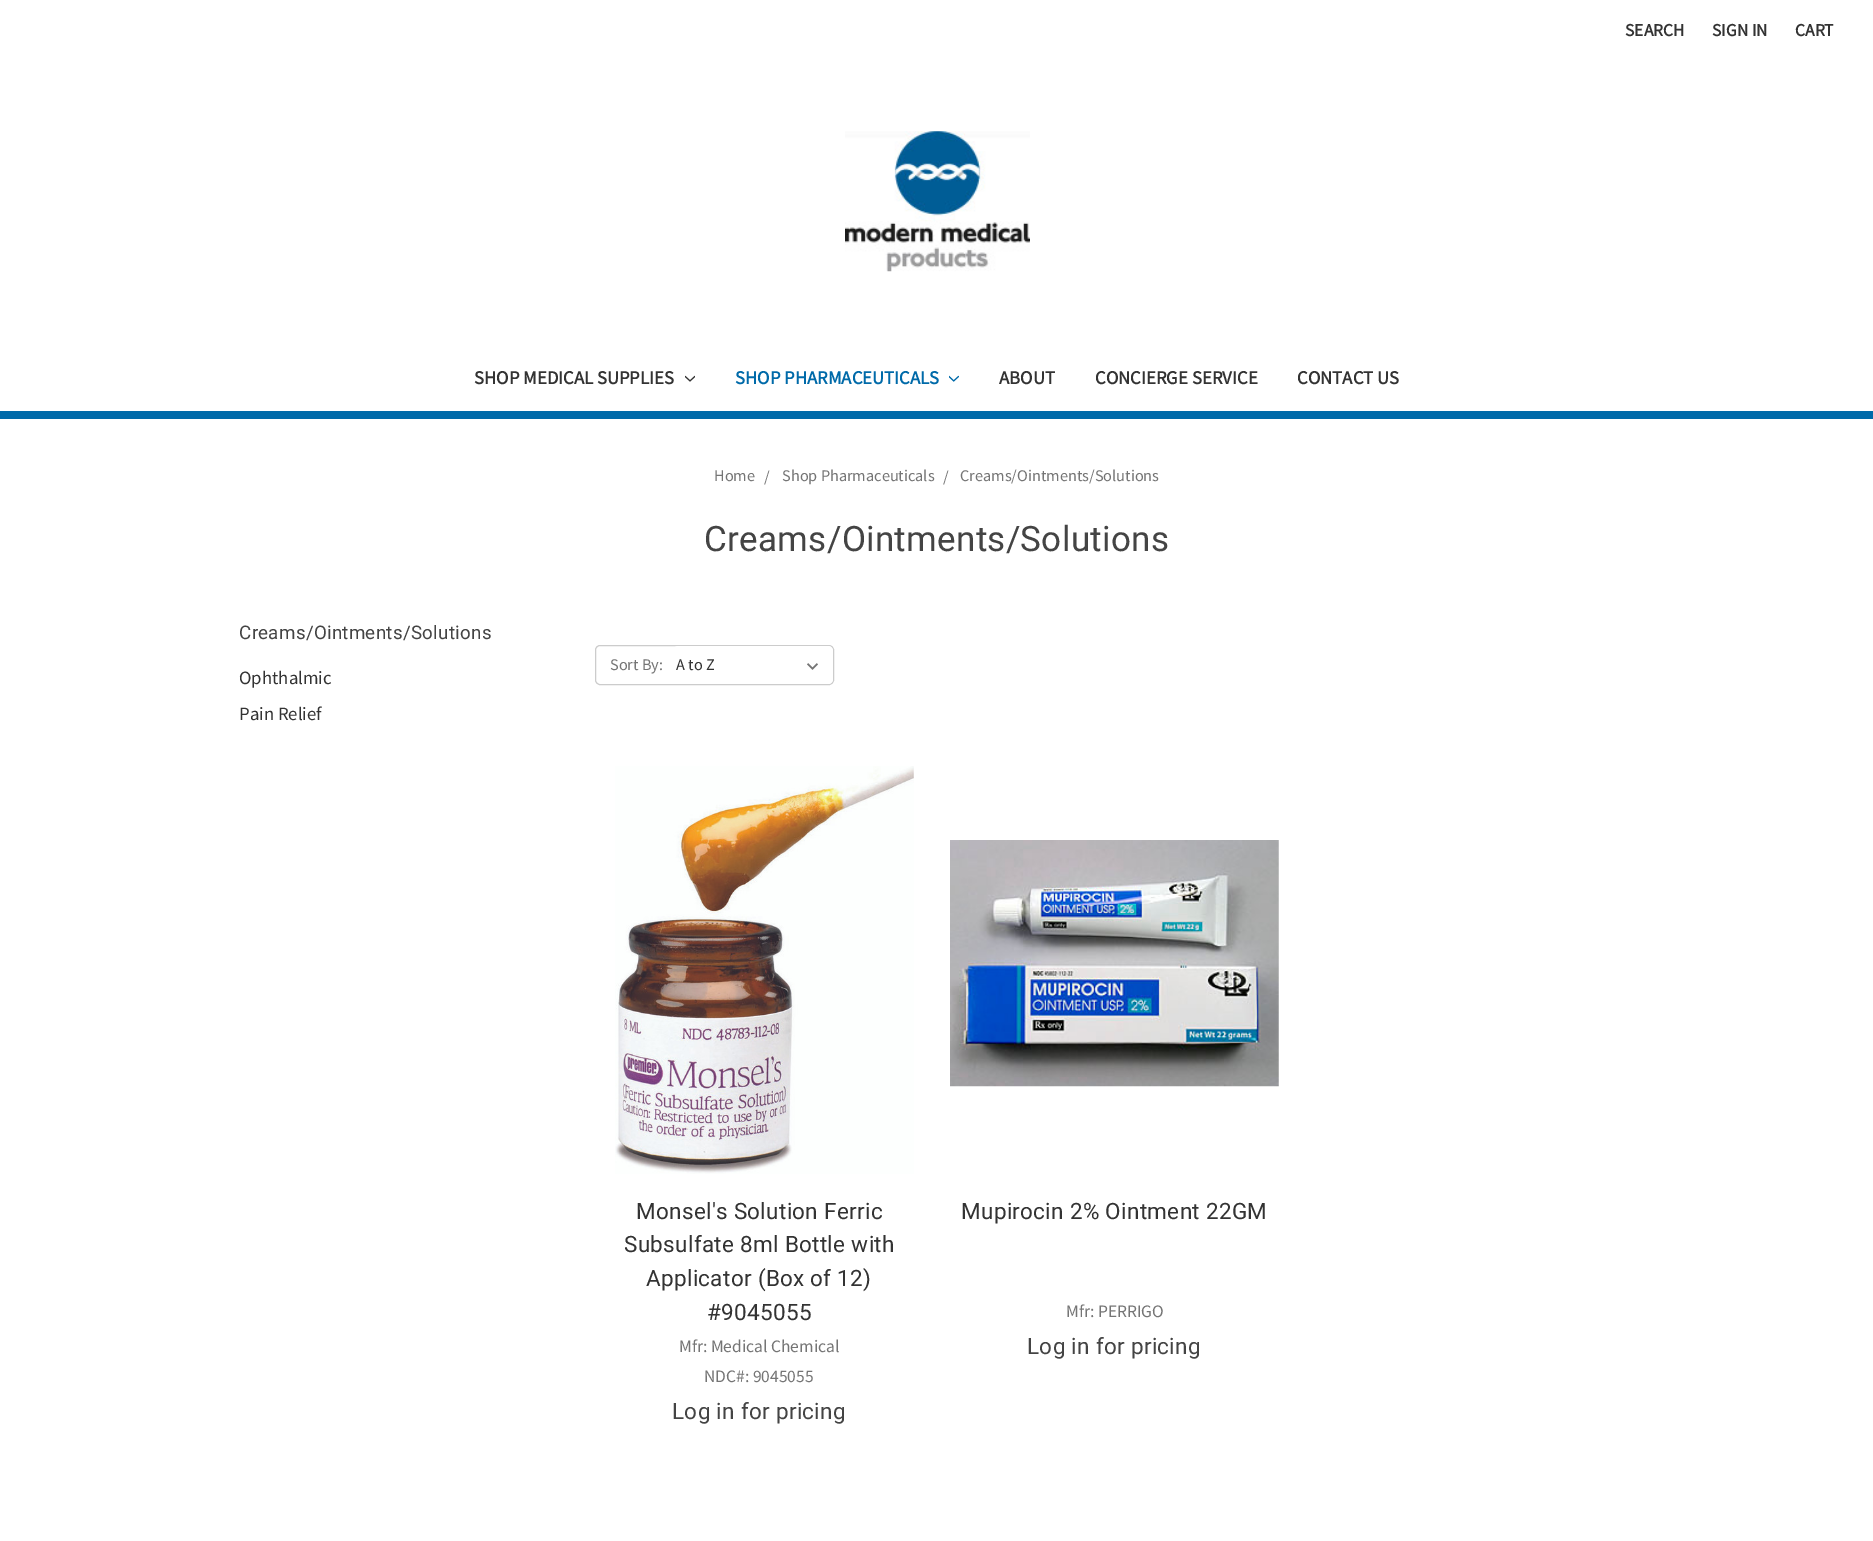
%!PS
<< /PageSize [1873 1541] >> setpagedevice
/mt/moveto load def
/fl/fill load def
/st/stroke load def
/gs/gsave load def
/gr/grestore load def
/co { dup -16 bitshift 255 div exch dup -8 bitshift 255 and 255 div exch 255 and 255 div setrgbcolor } def
/fn { [ exch dup neg 0 0 3 -1 roll 0 0 ] selectfont } def
/tx { co fn moveto show } def
/bx { co rectfill } def
/rr { 5 dict begin { /r /h /w /y /x } { exch def } forall
  x r add y moveto x w add y 2 copy h add r arct x w add y h add x 1 index r arct
  x y h add x y r arct x y 2 copy exch w add exch r arct closepath end } def
/im { 5 dict begin { /h /w /y /x /name } { exch def } forall
  gsave x y translate w h scale
  w h 8 [w 0 0 h 0 0] name (r) file false 3 colorimage grestore end } def
0 1541 translate 1 -1 scale
4 setmiterlimit
0 0 1873 1541 16#FFFFFF bx
0 411 1873 8 16#006AA9 bx
(media/1.raw) 845 131 185 141 im
(media/2.raw) 685 375 10 7 im
(media/3.raw) 949 375 10 7 im
16#CCCCCC co
595.5 645.5 238 39 4.5 rr st
gs
596 646 237 38 4 rr clip newpath
16#FFFFFF co
673 646 160 38 5 rr fl
gr
(media/4.raw) 807 663 11 7 im
(media/5.raw) 615 766 299 408 im
(media/6.raw) 950 840 329 247 im
(SEARCH) 1625 36 /SourceSansPro-Bold 17.5 16#333333 tx
(SIGN IN) 1712 36 /SourceSansPro-Bold 17.5 16#333333 tx
(CART) 1795 36 /SourceSansPro-Bold 17.5 16#333333 tx
(SHOP MEDICAL SUPPLIES) 474 384 /SourceSansPro-Bold 18.75 16#333333 tx
(SHOP PHARMACEUTICALS) 735 384 /SourceSansPro-Bold 18.75 16#006AA9 tx
(ABOUT) 999 384 /SourceSansPro-Bold 18.75 16#333333 tx
(CONCIERGE SERVICE) 1095 384 /SourceSansPro-Bold 18.75 16#333333 tx
(CONTACT US) 1297 384 /SourceSansPro-Bold 18.75 16#333333 tx
(Home) 714 481 /SourceSansPro-Regular 16.25 16#757575 tx
(/) 764 482 /SourceSansPro-Regular 16.25 16#757575 tx
(Shop Pharmaceuticals) 782 481 /SourceSansPro-Regular 16.25 16#757575 tx
(/) 943 482 /SourceSansPro-Regular 16.25 16#757575 tx
(Creams/Ointments/Solutions) 960 481 /SourceSansPro-Regular 16.25 16#757575 tx
/Roboto-Regular 35 fn
16#444444 co
704 551 mt .3 0 (Creams/Ointments/Solutions) ashow
/Roboto-Regular 18.75 fn
239 639 mt .3 0 (Creams/Ointments/Solutions) ashow
(Ophthalmic) 239 684 /SourceSansPro-Regular 18.75 16#333333 tx
(Pain Relief) 239 720 /SourceSansPro-Regular 18.75 16#333333 tx
(Sort By:) 610 670 /SourceSansPro-Regular 16.25 16#757575 tx
(A to Z) 676 670 /SourceSansPro-Regular 16.25 16#333333 tx
/Roboto-Regular 22.5 fn
636 1219 mt .3 0 (Monsel's Solution Ferric) ashow
624 1252 mt .3 0 (Subsulfate 8ml Bottle with) ashow
646 1286 mt .3 0 (Applicator \(Box of 12\)) ashow
707 1320 mt .3 0 (#9045055) ashow
(Mfr: Medical Chemical) 679 1352 /SourceSansPro-Regular 17.5 16#757575 tx
(NDC#: 9045055) 704 1382 /SourceSansPro-Regular 17.5 16#757575 tx
/Roboto-Regular 22.5 fn
16#444444 co
672 1419 mt .3 0 (Log in for pricing) ashow
16#333333 co
961 1219 mt .3 0 (Mupirocin 2% Ointment 22GM) ashow
(Mfr: PERRIGO) 1066 1317 /SourceSansPro-Regular 17.5 16#757575 tx
/Roboto-Regular 22.5 fn
16#444444 co
1027 1354 mt .3 0 (Log in for pricing) ashow
showpage
